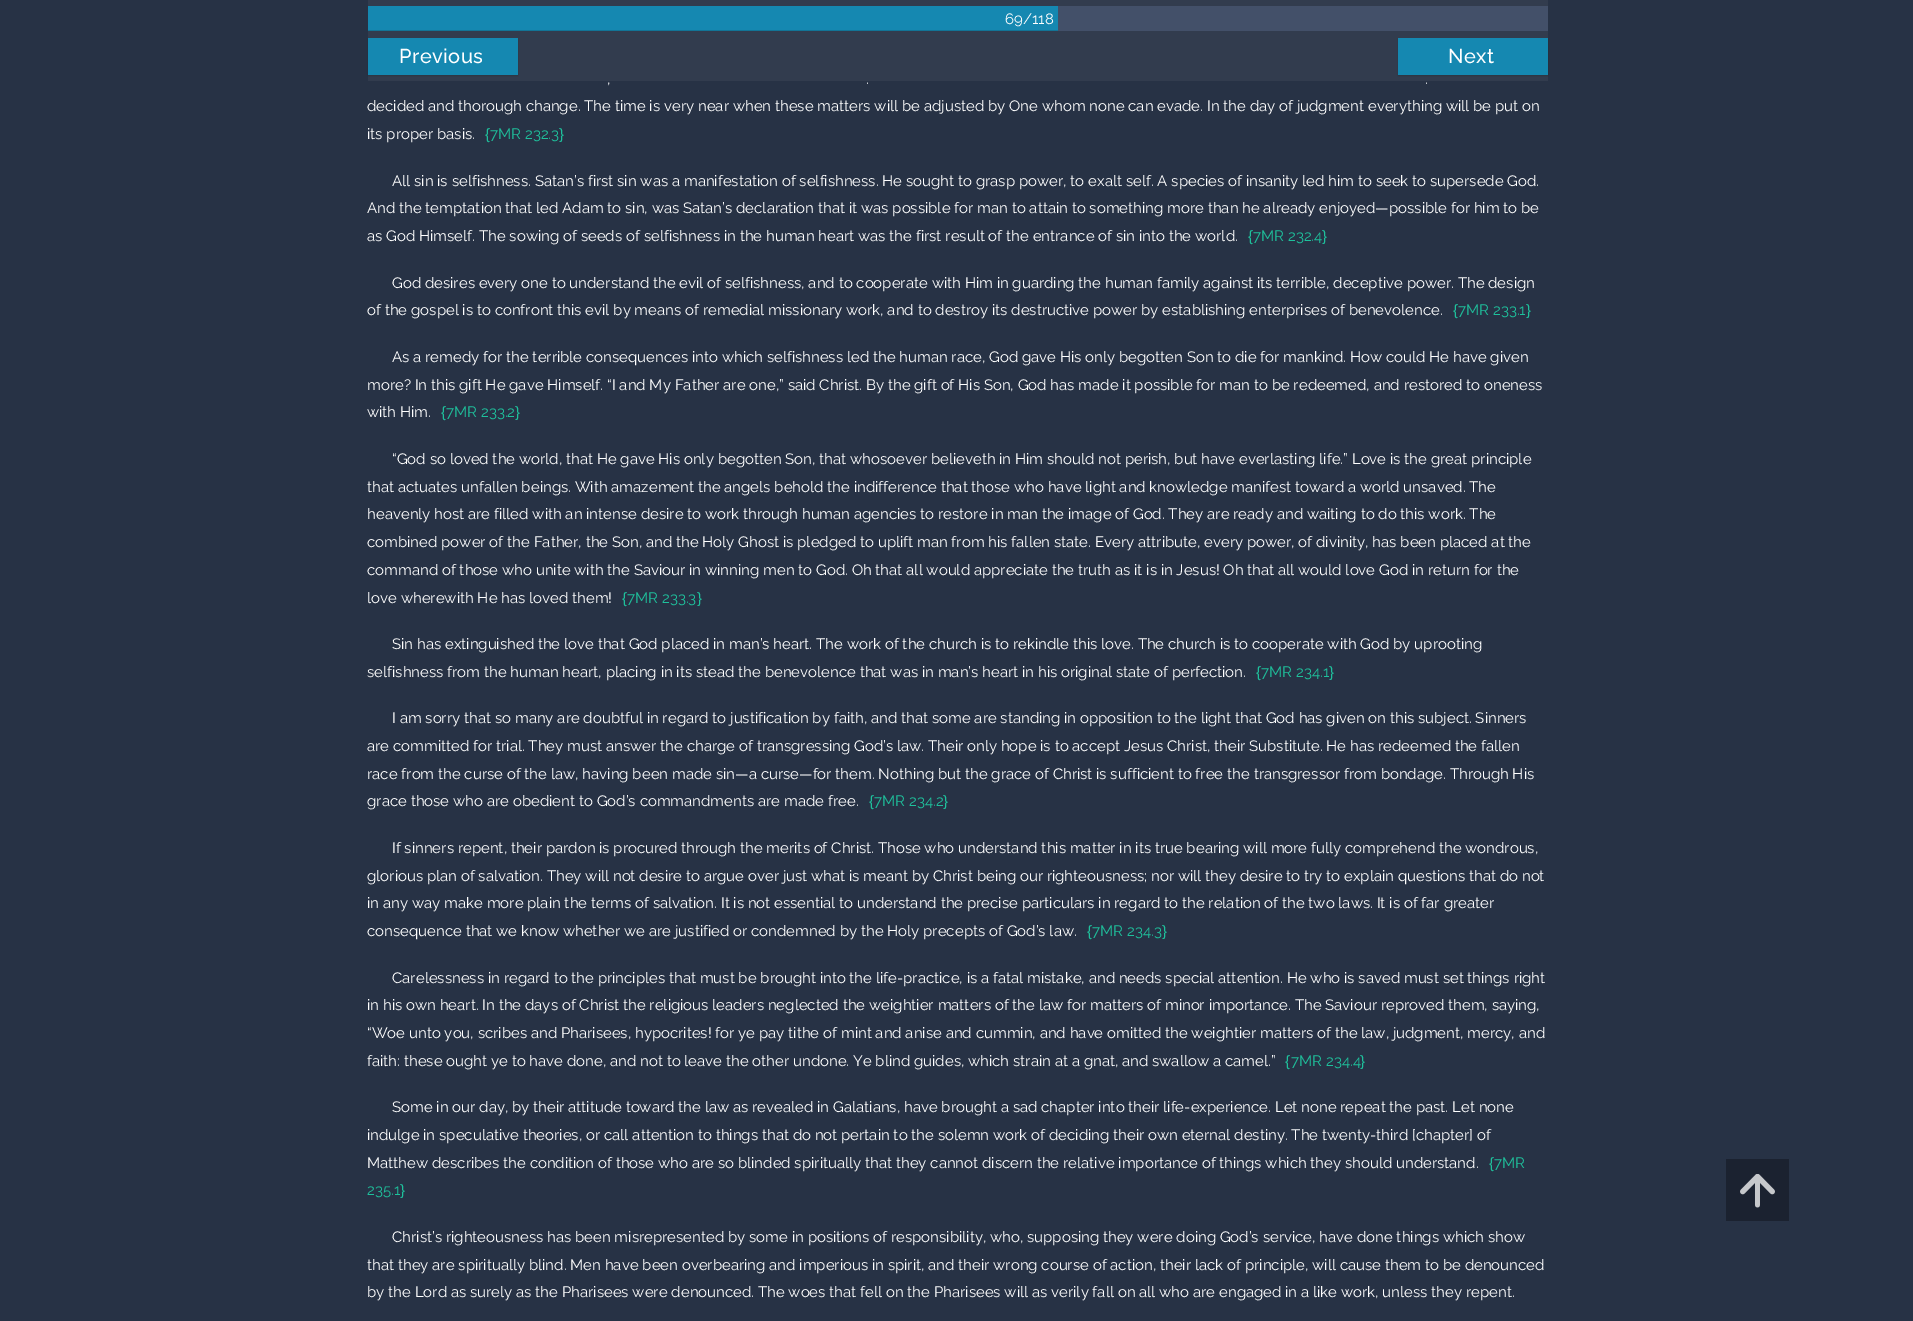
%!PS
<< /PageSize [1913 1321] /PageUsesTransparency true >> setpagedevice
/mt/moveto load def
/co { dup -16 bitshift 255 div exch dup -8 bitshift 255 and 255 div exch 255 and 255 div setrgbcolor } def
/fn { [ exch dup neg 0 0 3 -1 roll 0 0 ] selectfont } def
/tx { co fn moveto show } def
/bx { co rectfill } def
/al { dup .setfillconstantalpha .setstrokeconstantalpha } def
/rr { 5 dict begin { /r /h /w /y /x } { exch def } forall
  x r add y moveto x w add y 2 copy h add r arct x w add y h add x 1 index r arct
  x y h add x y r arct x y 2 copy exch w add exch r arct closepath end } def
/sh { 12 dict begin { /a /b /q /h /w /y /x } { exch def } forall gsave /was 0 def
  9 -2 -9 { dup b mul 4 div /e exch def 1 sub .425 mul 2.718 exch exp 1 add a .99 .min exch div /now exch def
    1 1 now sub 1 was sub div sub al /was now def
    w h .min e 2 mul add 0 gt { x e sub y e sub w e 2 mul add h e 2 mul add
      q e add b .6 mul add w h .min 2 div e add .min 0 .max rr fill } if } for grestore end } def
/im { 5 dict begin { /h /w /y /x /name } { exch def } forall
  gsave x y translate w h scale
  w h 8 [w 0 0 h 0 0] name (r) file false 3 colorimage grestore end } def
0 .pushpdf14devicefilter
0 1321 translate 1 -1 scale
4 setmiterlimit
0 0 1913 1321 16#273245 bx
368 0 1180 81 16#323C4E bx
1058 6 490 25 16#435069 bx
368 6 690 24 16#1588B1 bx
368 30 690 1 16#127496 bx
16#000000 co
368 39 150 37 0 1 .15 sh
368 38 150 37 16#1588B1 bx
16#000000 co
1398 39 150 37 0 1 .15 sh
1398 38 150 37 16#1588B1 bx
1726 1159 63 62 16#1B2230 bx
(media/1.raw) 1740 1174 35 34 im
(69/118) 1005 24 /Raleway-Regular 15 16#FFFFFF tx
/Raleway-Medium 20 fn
399 63 mt .5 0 (Previous) ashow
1448 63 mt .5 0 (Next) ashow
(,) 607 84 /Raleway-Regular 15 16#FFFFFF tx
(.) 866 84 /Raleway-Regular 15 16#FFFFFF tx
(.) 1425 84 /Raleway-Regular 15 16#FFFFFF tx
(decided and thorough change. The time is very near when these matters will be adjusted by One whom none can evade. In the day of judgment everything will be put on) 367 111 /Raleway-Regular 15 16#FFFFFF tx
(its proper basis.) 367 139 /Raleway-Regular 15 16#FFFFFF tx
({) 485 139 /LiberationSans-Regular 15 16#1EC19C tx
(7MR 232.3) 490 139 /Raleway-Regular 15 16#1EC19C tx
(}) 559 139 /LiberationSans-Regular 15 16#1EC19C tx
(All sin is selfishness. Satan’s first sin was a manifestation of selfishness. He sought to grasp power, to exalt self. A species of insanity led him to seek to supersede God.) 392 186 /Raleway-Regular 15 16#FFFFFF tx
(And the temptation that led Adam to sin, was Satan’s declaration that it was possible for man to attain to something more than he already enjoyed—possible for him to be) 367 213 /Raleway-Regular 15 16#FFFFFF tx
(as God Himself. The sowing of seeds of selfishness in the human heart was the first result of the entrance of sin into the world.) 367 241 /Raleway-Regular 15 16#FFFFFF tx
({) 1248 241 /LiberationSans-Regular 15 16#1EC19C tx
(7MR 232.4) 1253 241 /Raleway-Regular 15 16#1EC19C tx
(}) 1322 241 /LiberationSans-Regular 15 16#1EC19C tx
(God desires every one to understand the evil of selfishness, and to cooperate with Him in guarding the human family against its terrible, deceptive power. The design) 392 288 /Raleway-Regular 15 16#FFFFFF tx
(of the gospel is to confront this evil by means of remedial missionary work, and to destroy its destructive power by establishing enterprises of benevolence.) 367 315 /Raleway-Regular 15 16#FFFFFF tx
({) 1453 315 /LiberationSans-Regular 15 16#1EC19C tx
(7MR 233.1) 1458 315 /Raleway-Regular 15 16#1EC19C tx
(}) 1526 315 /LiberationSans-Regular 15 16#1EC19C tx
(As a remedy for the terrible consequences into which selfishness led the human race, God gave His only begotten Son to die for mankind. How could He have given) 392 362 /Raleway-Regular 15 16#FFFFFF tx
(more? In this gift He gave Himself. “I and My Father are one,” said Christ. By the gift of His Son, God has made it possible for man to be redeemed, and restored to oneness) 367 390 /Raleway-Regular 15 16#FFFFFF tx
(with Him.) 367 417 /Raleway-Regular 15 16#FFFFFF tx
({) 441 417 /LiberationSans-Regular 15 16#1EC19C tx
(7MR 233.2) 446 417 /Raleway-Regular 15 16#1EC19C tx
(}) 515 417 /LiberationSans-Regular 15 16#1EC19C tx
(“God so loved the world, that He gave His only begotten Son, that whosoever believeth in Him should not perish, but have everlasting life.” Love is the great principle) 392 464 /Raleway-Regular 15 16#FFFFFF tx
(that actuates unfallen beings. With amazement the angels behold the indifference that those who have light and knowledge manifest toward a world unsaved. The) 367 492 /Raleway-Regular 15 16#FFFFFF tx
(heavenly host are filled with an intense desire to work through human agencies to restore in man the image of God. They are ready and waiting to do this work. The) 367 519 /Raleway-Regular 15 16#FFFFFF tx
(combined power of the Father, the Son, and the Holy Ghost is pledged to uplift man from his fallen state. Every attribute, every power, of divinity, has been placed at the) 367 547 /Raleway-Regular 15 16#FFFFFF tx
(command of those who unite with the Saviour in winning men to God. Oh that all would appreciate the truth as it is in Jesus! Oh that all would love God in return for the) 367 575 /Raleway-Regular 15 16#FFFFFF tx
(love wherewith He has loved them!) 367 603 /Raleway-Regular 15 16#FFFFFF tx
({) 622 603 /LiberationSans-Regular 15 16#1EC19C tx
(7MR 233.3) 627 603 /Raleway-Regular 15 16#1EC19C tx
(}) 697 603 /LiberationSans-Regular 15 16#1EC19C tx
(Sin has extinguished the love that God placed in man’s heart. The work of the church is to rekindle this love. The church is to cooperate with God by uprooting) 392 649 /Raleway-Regular 15 16#FFFFFF tx
(selfishness from the human heart, placing in its stead the benevolence that was in man’s heart in his original state of perfection.) 367 677 /Raleway-Regular 15 16#FFFFFF tx
({) 1256 677 /LiberationSans-Regular 15 16#1EC19C tx
(7MR 234.1) 1261 677 /Raleway-Regular 15 16#1EC19C tx
(}) 1329 677 /LiberationSans-Regular 15 16#1EC19C tx
(I am sorry that so many are doubtful in regard to justification by faith, and that some are standing in opposition to the light that God has given on this subject. Sinners) 392 723 /Raleway-Regular 15 16#FFFFFF tx
(are committed for trial. They must answer the charge of transgressing God’s law. Their only hope is to accept Jesus Christ, their Substitute. He has redeemed the fallen) 367 751 /Raleway-Regular 15 16#FFFFFF tx
(race from the curse of the law, having been made sin—a curse—for them. Nothing but the grace of Christ is sufficient to free the transgressor from bondage. Through His) 367 779 /Raleway-Regular 15 16#FFFFFF tx
(grace those who are obedient to God’s commandments are made free.) 367 806 /Raleway-Regular 15 16#FFFFFF tx
({) 869 806 /LiberationSans-Regular 15 16#1EC19C tx
(7MR 234.2) 874 806 /Raleway-Regular 15 16#1EC19C tx
(}) 943 806 /LiberationSans-Regular 15 16#1EC19C tx
(If sinners repent, their pardon is procured through the merits of Christ. Those who understand this matter in its true bearing will more fully comprehend the wondrous,) 392 853 /Raleway-Regular 15 16#FFFFFF tx
(glorious plan of salvation. They will not desire to argue over just what is meant by Christ being our righteousness; nor will they desire to try to explain questions that do not) 367 881 /Raleway-Regular 15 16#FFFFFF tx
(in any way make more plain the terms of salvation. It is not essential to understand the precise particulars in regard to the relation of the two laws. It is of far greater) 367 908 /Raleway-Regular 15 16#FFFFFF tx
(consequence that we know whether we are justified or condemned by the Holy precepts of God’s law.) 367 936 /Raleway-Regular 15 16#FFFFFF tx
({) 1087 936 /LiberationSans-Regular 15 16#1EC19C tx
(7MR 234.3) 1092 936 /Raleway-Regular 15 16#1EC19C tx
(}) 1162 936 /LiberationSans-Regular 15 16#1EC19C tx
(Carelessness in regard to the principles that must be brought into the life-practice, is a fatal mistake, and needs special attention. He who is saved must set things right) 392 983 /Raleway-Regular 15 16#FFFFFF tx
(in his own heart. In the days of Christ the religious leaders neglected the weightier matters of the law for matters of minor importance. The Saviour reproved them, saying,) 367 1010 /Raleway-Regular 15 16#FFFFFF tx
(“Woe unto you, scribes and Pharisees, hypocrites! for ye pay tithe of mint and anise and cummin, and have omitted the weightier matters of the law, judgment, mercy, and) 367 1038 /Raleway-Regular 15 16#FFFFFF tx
(faith: these ought ye to have done, and not to leave the other undone. Ye blind guides, which strain at a gnat, and swallow a camel.”) 367 1066 /Raleway-Regular 15 16#FFFFFF tx
({) 1285 1066 /LiberationSans-Regular 15 16#1EC19C tx
(7MR 234.4) 1291 1066 /Raleway-Regular 15 16#1EC19C tx
(}) 1360 1066 /LiberationSans-Regular 15 16#1EC19C tx
(Some in our day, by their attitude toward the law as revealed in Galatians, have brought a sad chapter into their life-experience. Let none repeat the past. Let none) 392 1112 /Raleway-Regular 15 16#FFFFFF tx
(indulge in speculative theories, or call attention to things that do not pertain to the solemn work of deciding their own eternal destiny. The twenty-third [chapter] of) 367 1140 /Raleway-Regular 15 16#FFFFFF tx
(Matthew describes the condition of those who are so blinded spiritually that they cannot discern the relative importance of things which they should understand.) 367 1168 /Raleway-Regular 15 16#FFFFFF tx
({) 1489 1168 /LiberationSans-Regular 15 16#1EC19C tx
(7MR) 1494 1168 /Raleway-Regular 15 16#1EC19C tx
(235.1) 367 1195 /Raleway-Regular 15 16#1EC19C tx
(}) 400 1195 /LiberationSans-Regular 15 16#1EC19C tx
(Christ’s righteousness has been misrepresented by some in positions of responsibility, who, supposing they were doing God’s service, have done things which show) 392 1242 /Raleway-Regular 15 16#FFFFFF tx
(that they are spiritually blind. Men have been overbearing and imperious in spirit, and their wrong course of action, their lack of principle, will cause them to be denounced) 367 1270 /Raleway-Regular 15 16#FFFFFF tx
(by the Lord as surely as the Pharisees were denounced. The woes that fell on the Pharisees will as verily fall on all who are engaged in a like work, unless they repent.) 367 1297 /Raleway-Regular 15 16#FFFFFF tx
.poppdf14devicefilter showpage
